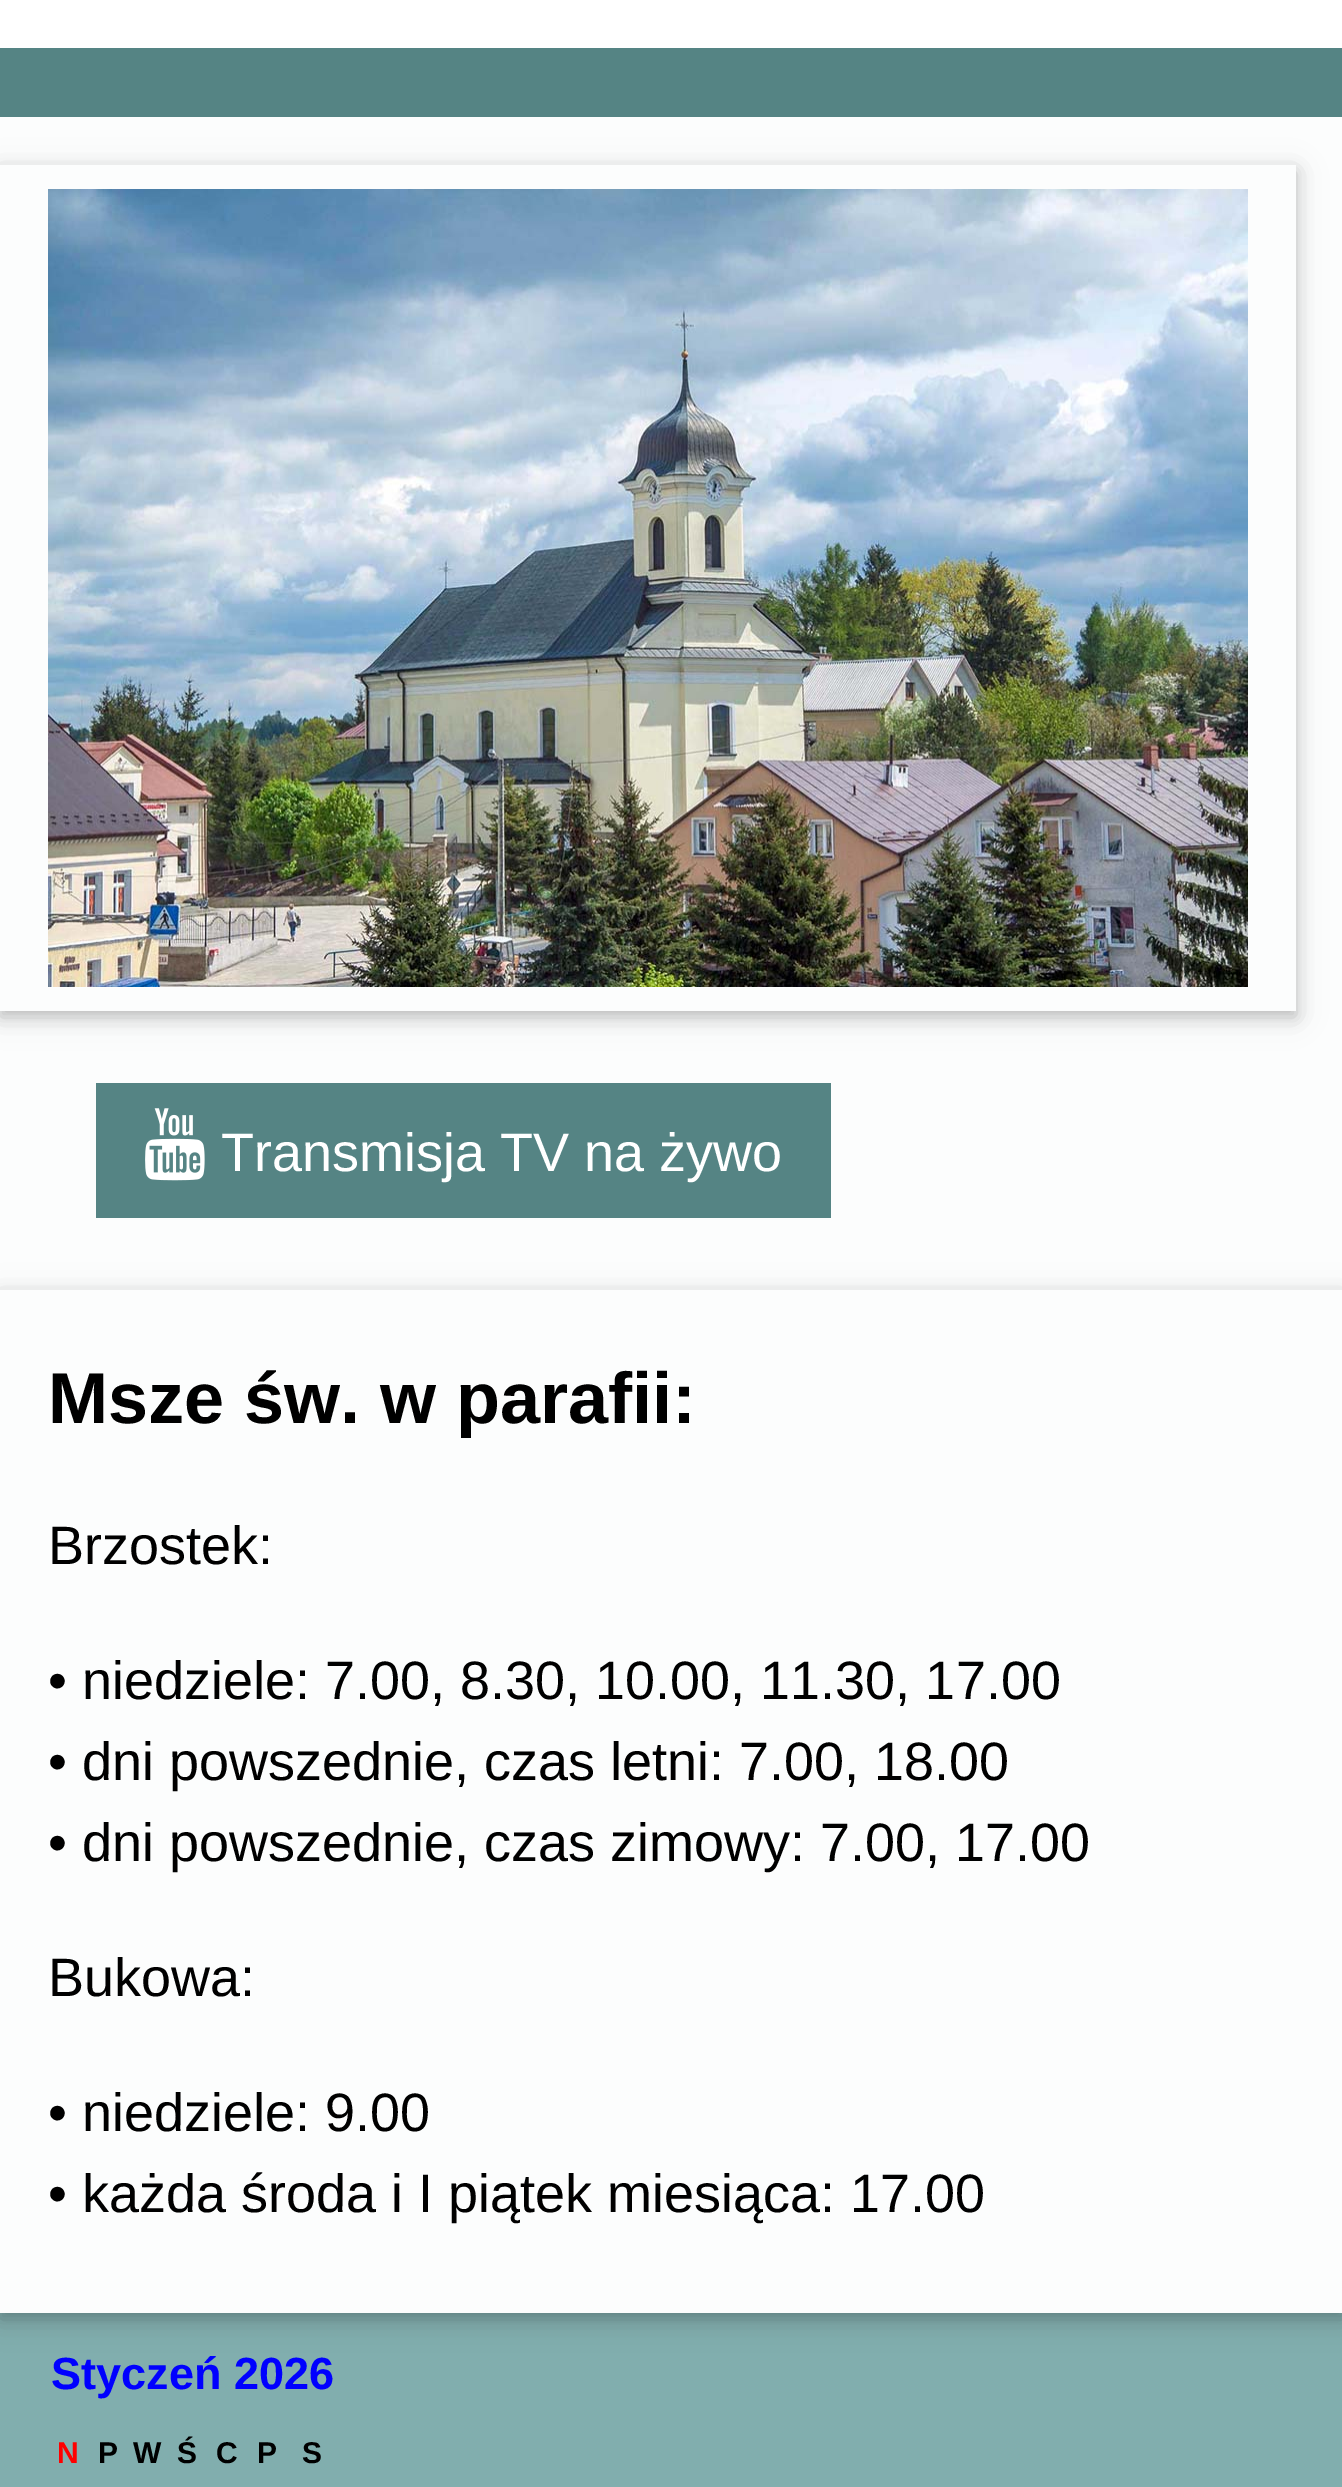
%!PS
<< /PageSize [1342 2487] /PageUsesTransparency true >> setpagedevice
/mt/moveto load def
/li/lineto load def
/cp/closepath load def
/gs/gsave load def
/gr/grestore load def
/co { dup -16 bitshift 255 div exch dup -8 bitshift 255 and 255 div exch 255 and 255 div setrgbcolor } def
/fn { [ exch dup neg 0 0 3 -1 roll 0 0 ] selectfont } def
/tx { co fn moveto show } def
/bx { co rectfill } def
/al { dup .setfillconstantalpha .setstrokeconstantalpha } def
/rr { 5 dict begin { /r /h /w /y /x } { exch def } forall
  x r add y moveto x w add y 2 copy h add r arct x w add y h add x 1 index r arct
  x y h add x y r arct x y 2 copy exch w add exch r arct closepath end } def
/sh { 12 dict begin { /a /b /q /h /w /y /x } { exch def } forall gsave /was 0 def
  9 -2 -9 { dup b mul 4 div /e exch def 1 sub .425 mul 2.718 exch exp 1 add a .99 .min exch div /now exch def
    1 1 now sub 1 was sub div sub al /was now def
    w h .min e 2 mul add 0 gt { x e sub y e sub w e 2 mul add h e 2 mul add
      q e add b .6 mul add w h .min 2 div e add .min 0 .max rr fill } if } for grestore end } def
/im { 5 dict begin { /h /w /y /x /name } { exch def } forall
  gsave x y translate w h scale
  w h 8 [w 0 0 h 0 0] name (r) file false 3 colorimage grestore end } def
0 .pushpdf14devicefilter
0 2487 translate 1 -1 scale
4 setmiterlimit
0 0 1342 2487 16#FFFFFF bx
0 117 1342 2196 16#FCFDFD bx
0 48 1342 69 16#558484 bx
gs
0 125 mt 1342 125 li 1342 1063 li 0 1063 li cp 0 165 mt 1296 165 li 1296 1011 li 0 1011 li cp eoclip newpath
16#000000 co
0 171 1296 846 0 15 .12 sh
gr
gs
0 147 mt 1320 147 li 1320 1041 li 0 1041 li cp 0 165 mt 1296 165 li 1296 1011 li 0 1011 li cp eoclip newpath
16#000000 co
0 171 1296 846 0 7.5 .16 sh
gr
(media/1.raw) 48 189 1200 798 im
96 1083 735 135 16#558484 bx
(media/2.raw) 145 1108 60 73 im
0 2313 1342 174 16#81AEAE bx
gs
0 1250 mt 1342 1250 li 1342 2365 li 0 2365 li cp 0 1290 mt 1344 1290 li 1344 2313 li 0 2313 li cp eoclip newpath
16#000000 co
0 1296 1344 1023 0 15 .12 sh
gr
gs
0 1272 mt 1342 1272 li 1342 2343 li 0 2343 li cp 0 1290 mt 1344 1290 li 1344 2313 li 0 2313 li cp eoclip newpath
16#000000 co
0 1296 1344 1023 0 7.5 .16 sh
gr
(Transmisja TV na żywo) 221 1171 /LiberationSans-Regular 54 16#FFFFFF tx
(Msze św. w parafii:) 48 1423 /LiberationSans-Bold 72 16#000000 tx
(Brzostek:) 48 1564 /LiberationSans-Regular 54 16#000000 tx
(• niedziele: 7.00, 8.30, 10.00, 11.30, 17.00) 48 1699 /LiberationSans-Regular 54 16#000000 tx
(• dni powszednie, czas letni: 7.00, 18.00) 48 1780 /LiberationSans-Regular 54 16#000000 tx
(• dni powszednie, czas zimowy: 7.00, 17.00) 48 1861 /LiberationSans-Regular 54 16#000000 tx
(Bukowa:) 48 1996 /LiberationSans-Regular 54 16#000000 tx
(• niedziele: 9.00) 48 2131 /LiberationSans-Regular 54 16#000000 tx
(• każda środa i I piątek miesiąca: 17.00) 48 2212 /LiberationSans-Regular 54 16#000000 tx
(Styczeń 2026) 51 2389 /LiberationSans-Bold 45 16#0000FF tx
(N) 57 2463 /LiberationSans-Bold 30 16#FF0000 tx
(P) 98 2463 /LiberationSans-Bold 30 16#000000 tx
(W) 133 2463 /LiberationSans-Bold 30 16#000000 tx
(Ś) 177 2463 /LiberationSans-Bold 30 16#000000 tx
(C) 216 2463 /LiberationSans-Bold 30 16#000000 tx
(P) 257 2463 /LiberationSans-Bold 30 16#000000 tx
(S) 302 2463 /LiberationSans-Bold 30 16#000000 tx
.poppdf14devicefilter showpage
